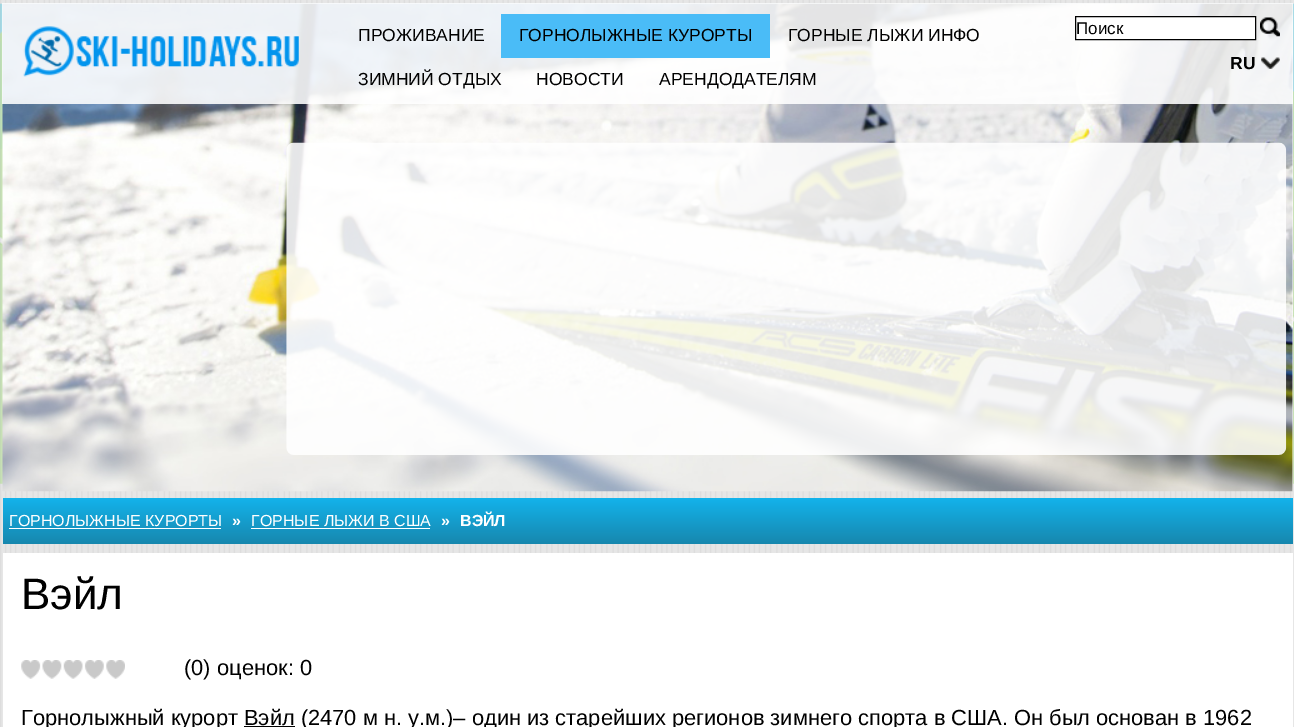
%!PS
<< /PageSize [1294 727] /PageUsesTransparency true >> setpagedevice
/mt/moveto load def
/li/lineto load def
/cp/closepath load def
/fl/fill load def
/st/stroke load def
/gs/gsave load def
/gr/grestore load def
/co { dup -16 bitshift 255 div exch dup -8 bitshift 255 and 255 div exch 255 and 255 div setrgbcolor } def
/fn { [ exch dup neg 0 0 3 -1 roll 0 0 ] selectfont } def
/tx { co fn moveto show } def
/bx { co rectfill } def
/al { dup .setfillconstantalpha .setstrokeconstantalpha } def
/im { 5 dict begin { /h /w /y /x /name } { exch def } forall
  gsave x y translate w h scale
  w h 8 [w 0 0 h 0 0] name (r) file false 3 colorimage grestore end } def
0 .pushpdf14devicefilter
0 727 translate 1 -1 scale
4 setmiterlimit
0 0 1294 727 16#FFFFFF bx
(media/1.raw) 0 0 1294 727 im
(media/2.raw) 0 3 1294 481 im
1292 4 1 487 16#FFFFFF bx
(media/3.raw) 2 3 1291 489 im
0.88 al
2 3 1291 101 16#FFFFFF bx
1 al
(media/4.raw) 23 26 276 51 im
501 14 269 44 16#4ABCF7 bx
16#FFFFFF co
1075.5 16.5 mt 1255.5 16.5 li 1255.5 39.5 li 1075.5 39.5 li cp gs fl gr
16#000000 co
st
(media/5.raw) 1260 17 20 20 im
(media/6.raw) 1261 57 19 12 im
(media/7.raw) 286 142 1001 313 im
gs 3 498 mt 1293 498 li 1293 544 li 3 544 li cp clip newpath
<< /ShadingType 2 /ColorSpace /DeviceRGB /Coords [648 544 648 498] /Extend [true true] /Function << /FunctionType 2 /Domain [0 1] /C0 [.09 .529 .682] /C1 [.075 .702 .922] /N 1 >> >> shfill gr
9 528 212 1 16#FFFFFF bx
251 528 179 1 16#FFFFFF bx
3 553 1290 174 16#FFFFFF bx
(media/8.raw) 21 660 104 19 im
244 726 51 1 16#000000 bx
(ПРОЖИВАНИЕ) 358 41 /LiberationSans-Regular 17.5 16#000000 tx
(ГОРНОЛЫЖНЫЕ КУРОРТЫ) 519 41 /LiberationSans-Regular 17.5 16#000000 tx
(ГОРНЫЕ ЛЫЖИ ИНФО) 788 41 /LiberationSans-Regular 17.5 16#000000 tx
(ЗИМНИЙ ОТДЫХ) 358 85 /LiberationSans-Regular 17.5 16#000000 tx
(НОВОСТИ) 536 85 /LiberationSans-Regular 17.5 16#000000 tx
(АРЕНДОДАТЕЛЯМ) 659 85 /LiberationSans-Regular 17.5 16#000000 tx
(Поиск) 1076 34 /LiberationSans-Regular 17 16#000000 tx
(RU) 1230 69 /LiberationSans-Bold 17.5 16#000000 tx
(ГОРНОЛЫЖНЫЕ КУРОРТЫ) 9 526 /LiberationSans-Regular 16 16#FFFFFF tx
(») 232 526 /LiberationSans-Bold 16 16#FFFFFF tx
(ГОРНЫЕ ЛЫЖИ В США) 251 526 /LiberationSans-Regular 16 16#FFFFFF tx
(») 441 526 /LiberationSans-Bold 16 16#FFFFFF tx
(ВЭЙЛ) 460 526 /LiberationSans-Bold 16 16#FFFFFF tx
(Вэйл) 21 609 /LiberationSans-Regular 44 16#000000 tx
(\(0\) оценок: 0) 184 675 /LiberationSans-Regular 21.88 16#000000 tx
(Горнолыжный курорт Вэйл \(2470 м н. у.м.\)– один из старейших регионов зимнего спорта в США. Он был основан в 1962) 21 725 /LiberationSans-Regular 21.88 16#000000 tx
.poppdf14devicefilter showpage
